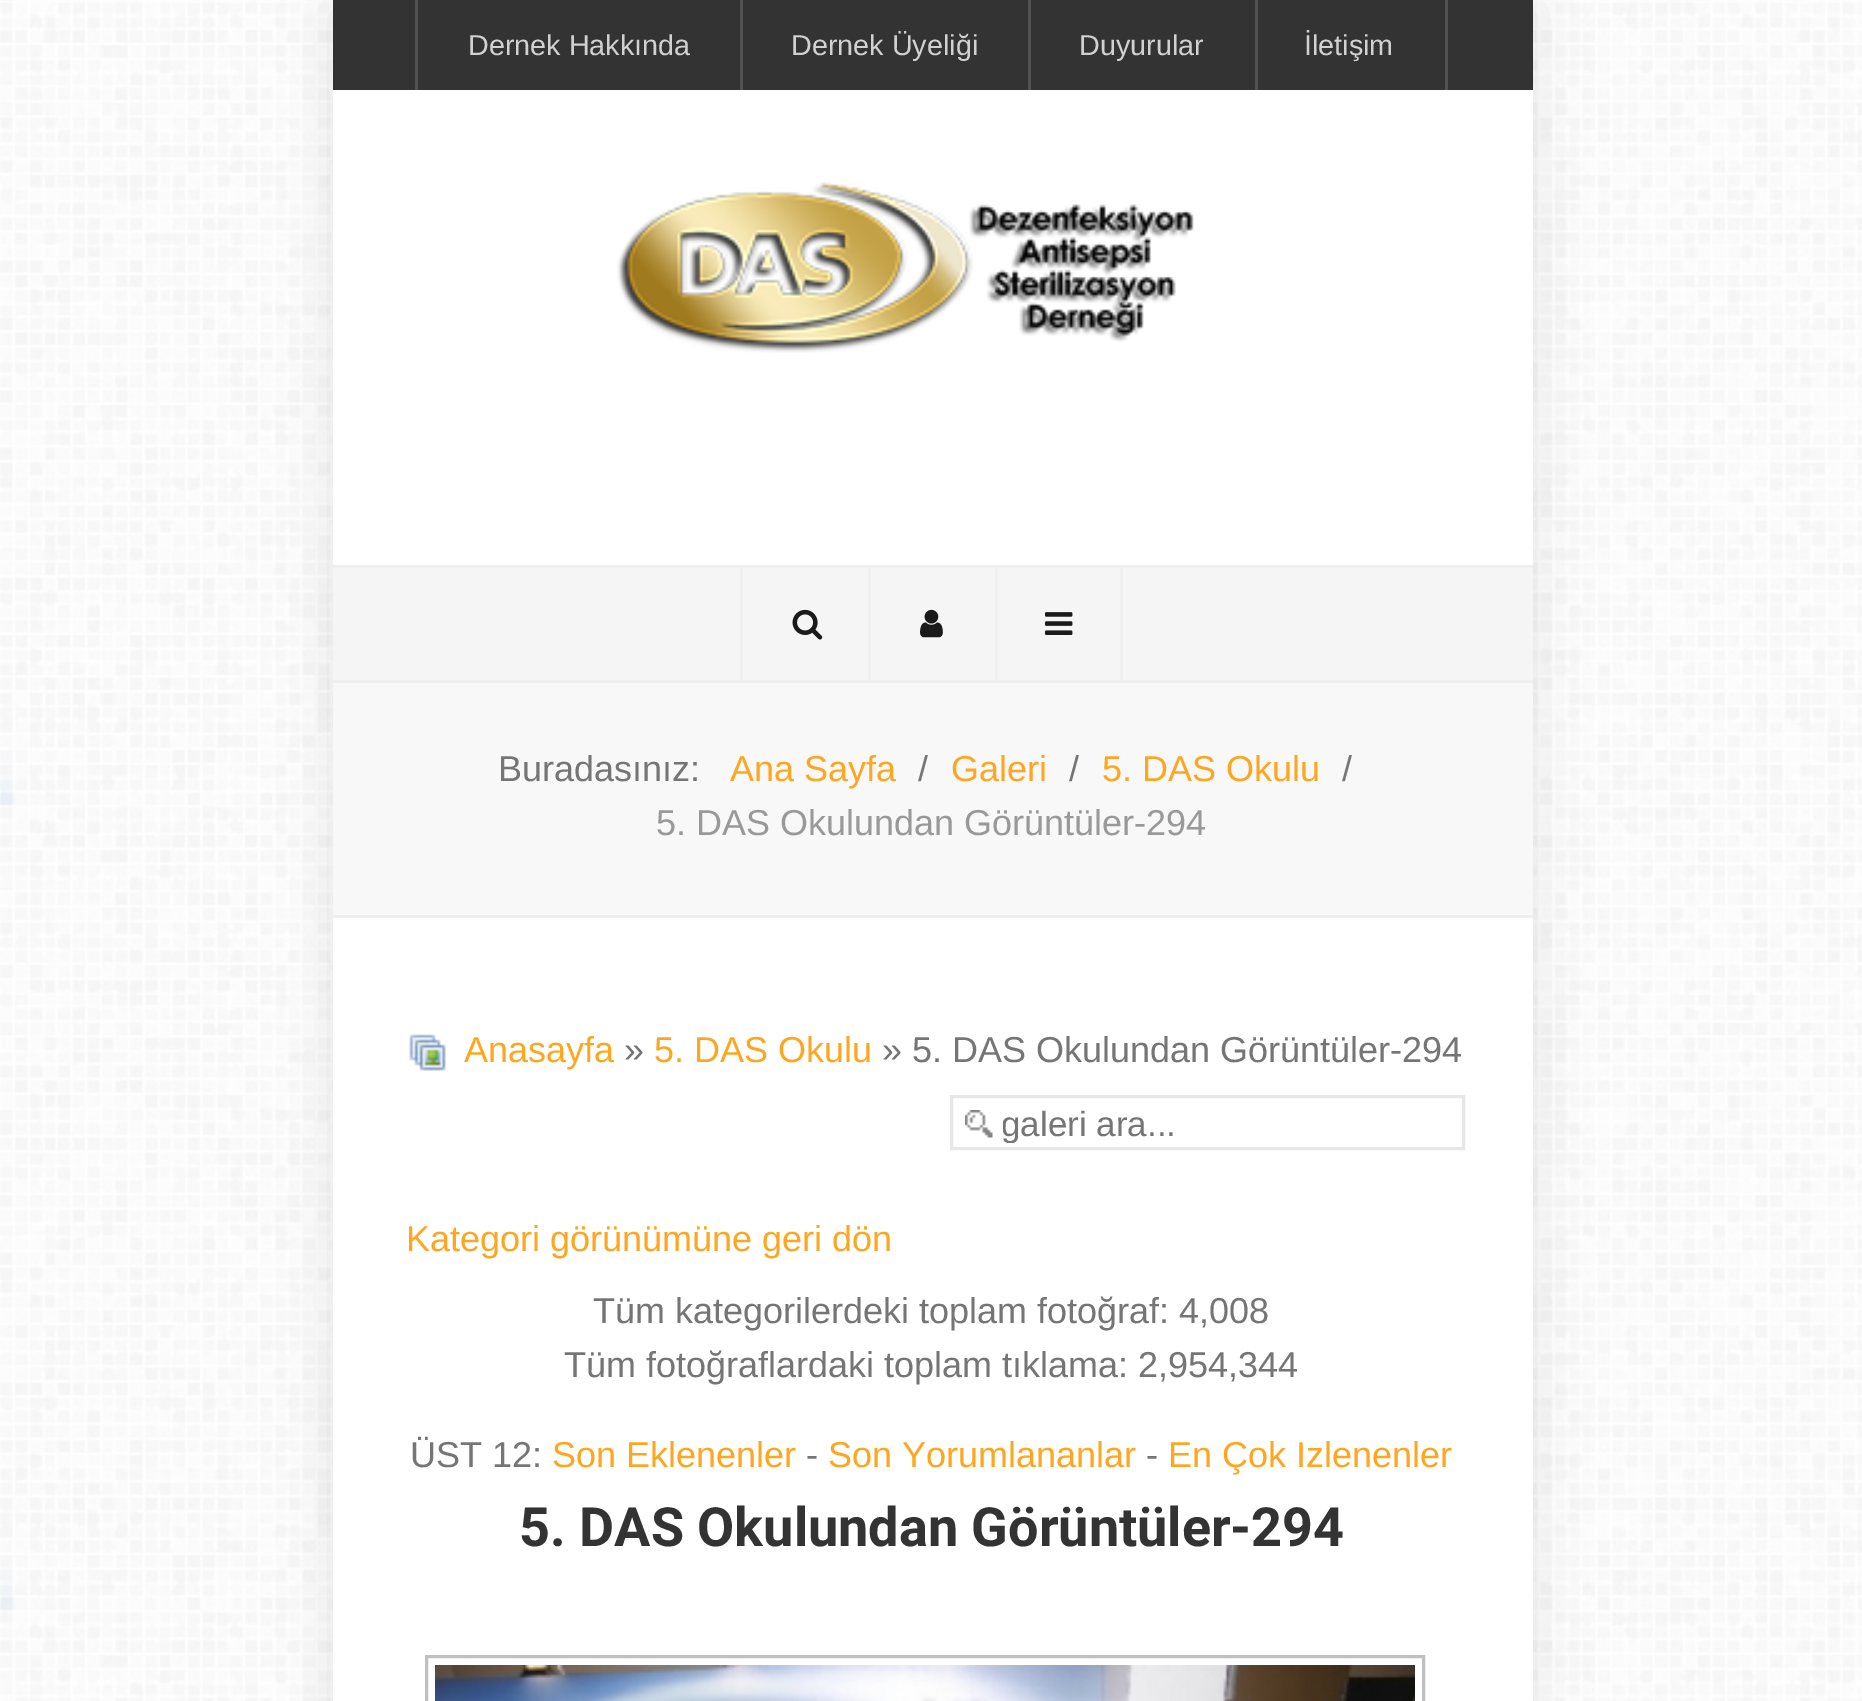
%!PS
<< /PageSize [1862 1701] /PageUsesTransparency true >> setpagedevice
/gs/gsave load def
/gr/grestore load def
/lw/setlinewidth load def
/co { dup -16 bitshift 255 div exch dup -8 bitshift 255 and 255 div exch 255 and 255 div setrgbcolor } def
/fn { [ exch dup neg 0 0 3 -1 roll 0 0 ] selectfont } def
/tx { co fn moveto show } def
/bx { co rectfill } def
/al { dup .setfillconstantalpha .setstrokeconstantalpha } def
/rr { 5 dict begin { /r /h /w /y /x } { exch def } forall
  x r add y moveto x w add y 2 copy h add r arct x w add y h add x 1 index r arct
  x y h add x y r arct x y 2 copy exch w add exch r arct closepath end } def
/sh { 12 dict begin { /a /b /q /h /w /y /x } { exch def } forall gsave /was 0 def
  9 -2 -9 { dup b mul 4 div /e exch def 1 sub .425 mul 2.718 exch exp 1 add a .99 .min exch div /now exch def
    1 1 now sub 1 was sub div sub al /was now def
    w h .min e 2 mul add 0 gt { x e sub y e sub w e 2 mul add h e 2 mul add
      q e add b .6 mul add w h .min 2 div e add .min 0 .max rr fill } if } for grestore end } def
/im { 5 dict begin { /h /w /y /x /name } { exch def } forall
  gsave x y translate w h scale
  w h 8 [w 0 0 h 0 0] name (r) file false 3 colorimage grestore end } def
0 .pushpdf14devicefilter
0 1701 translate 1 -1 scale
4 setmiterlimit
0 0 1862 1701 16#FFFFFF bx
(media/1.raw) 0 0 1862 1701 im
16#000000 co
333 8 1200 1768 0 25 .1 sh
333 0 1200 90 16#333333 bx
740 0 3 90 16#525252 bx
415 0 3 90 16#525252 bx
1028 0 3 90 16#525252 bx
1255 0 3 90 16#525252 bx
1445 0 3 90 16#525252 bx
333 90 1200 475 16#FFFFFF bx
(media/2.raw) 617 182 577 171 im
333 568 1200 112 16#F5F5F5 bx
333 565 1200 3 16#EFEFEF bx
333 680 1200 3 16#EFEFEF bx
868 568 3 112 16#EFEFEF bx
740 568 3 112 16#EFEFEF bx
(media/3.raw) 792 609 31 31 im
995 568 3 112 16#EFEFEF bx
(media/4.raw) 920 609 23 29 im
1120 568 3 112 16#EFEFEF bx
(media/5.raw) 1045 612 28 23 im
333 683 1200 232 16#F8F8F8 bx
333 915 1200 3 16#EFEFEF bx
333 918 1200 783 16#FFFFFF bx
(media/6.raw) 409 1034 37 37 im
(media/7.raw) 965 1110 28 28 im
16#E7E7E7 co
3 lw
951.5 1096.5 512 52 rectstroke
16#C0C0C0 co
426.5 1656.5 997 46 rectstroke
(media/8.raw) 435 1665 980 36 im
(Dernek Hakkında) 468 55 /LiberationSans-Regular 28.75 16#D1D1D1 tx
(Dernek Üyeliği) 791 55 /LiberationSans-Regular 28.75 16#D1D1D1 tx
(Duyurular) 1079 55 /LiberationSans-Regular 28.75 16#D1D1D1 tx
(İletişim) 1304 55 /LiberationSans-Regular 28.75 16#D1D1D1 tx
(Buradasınız:) 498 781 /LiberationSans-Regular 36 16#757575 tx
(Ana Sayfa) 730 781 /LiberationSans-Regular 36 16#FFA621 tx
(/) 918 781 /LiberationSans-Regular 36 16#757575 tx
(Galeri) 951 781 /LiberationSans-Regular 36 16#FFA621 tx
(/) 1069 781 /LiberationSans-Regular 36 16#757575 tx
(5. DAS Okulu) 1102 781 /LiberationSans-Regular 36 16#FFA621 tx
(/) 1342 781 /LiberationSans-Regular 36 16#757575 tx
(5. DAS Okulundan Görüntüler-294) 656 835 /LiberationSans-Regular 36 16#999999 tx
(Anasayfa) 464 1062 /LiberationSans-Regular 36 16#FFA621 tx
(») 624 1062 /LiberationSans-Regular 36 16#757575 tx
(5. DAS Okulu) 654 1062 /LiberationSans-Regular 36 16#FFA621 tx
(» 5. DAS Okulundan Görüntüler-294) 882 1062 /LiberationSans-Regular 36 16#757575 tx
gs
1003 1103 447 40 rectclip
(galeri ara...) 1001 1136 /LiberationSans-Regular 35 16#757575 tx
gr
(Kategori görünümüne geri dön) 406 1251 /LiberationSans-Regular 36 16#FFA621 tx
(Tüm kategorilerdeki toplam fotoğraf: 4,008) 593 1323 /LiberationSans-Regular 36 16#757575 tx
(Tüm fotoğraflardaki toplam tıklama: 2,954,344) 564 1377 /LiberationSans-Regular 36 16#757575 tx
(ÜST 12:) 410 1467 /LiberationSans-Regular 36 16#757575 tx
(Son Eklenenler) 552 1467 /LiberationSans-Regular 36 16#FFA621 tx
(-) 806 1467 /LiberationSans-Regular 36 16#757575 tx
(Son Yorumlananlar) 828 1467 /LiberationSans-Regular 36 16#FFA621 tx
(-) 1146 1467 /LiberationSans-Regular 36 16#757575 tx
(En Çok Izlenenler) 1168 1467 /LiberationSans-Regular 36 16#FFA621 tx
(5. DAS Okulundan Görüntüler-294) 519 1546 /Roboto-Bold 54 16#333333 tx
.poppdf14devicefilter showpage
